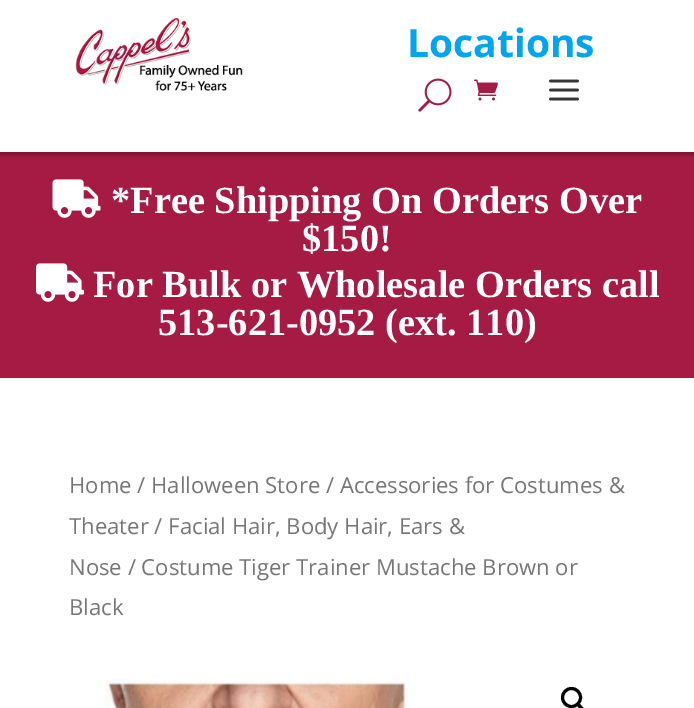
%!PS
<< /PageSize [694 708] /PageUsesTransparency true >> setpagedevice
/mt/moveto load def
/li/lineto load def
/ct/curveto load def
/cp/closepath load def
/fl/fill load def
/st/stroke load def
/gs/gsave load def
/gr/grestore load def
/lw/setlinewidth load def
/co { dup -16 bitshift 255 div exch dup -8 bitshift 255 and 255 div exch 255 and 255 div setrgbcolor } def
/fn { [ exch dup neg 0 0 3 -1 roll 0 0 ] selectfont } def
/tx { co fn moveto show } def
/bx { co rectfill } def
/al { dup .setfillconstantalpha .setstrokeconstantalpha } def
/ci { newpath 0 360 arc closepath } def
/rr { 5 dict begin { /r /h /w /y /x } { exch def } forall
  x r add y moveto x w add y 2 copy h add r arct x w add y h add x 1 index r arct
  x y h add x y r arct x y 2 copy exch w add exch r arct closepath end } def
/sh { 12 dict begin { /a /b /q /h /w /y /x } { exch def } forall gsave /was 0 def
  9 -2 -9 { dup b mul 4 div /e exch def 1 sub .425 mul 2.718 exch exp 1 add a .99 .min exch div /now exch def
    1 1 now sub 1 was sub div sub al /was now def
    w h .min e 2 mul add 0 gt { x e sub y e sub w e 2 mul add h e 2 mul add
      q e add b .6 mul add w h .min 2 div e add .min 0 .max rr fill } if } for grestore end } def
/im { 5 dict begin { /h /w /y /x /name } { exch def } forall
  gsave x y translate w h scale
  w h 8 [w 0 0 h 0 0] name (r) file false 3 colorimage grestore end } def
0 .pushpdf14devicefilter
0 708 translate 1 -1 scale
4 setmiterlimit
0 0 694 708 16#FFFFFF bx
0 152 694 226 16#A51B44 bx
gs
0 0 mt 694 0 li 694 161 li 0 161 li cp 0 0 mt 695 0 li 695 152 li 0 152 li cp eoclip newpath
16#000000 co
0 3 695 152 0 1.5 .25 sh
gr
(media/1.raw) 75 18 168 73 im
(media/2.raw) 418 78 34 34 im
(media/3.raw) 474 79 24 22 im
(media/4.raw) 549 79 30 22 im
(media/5.raw) 52 179 49 39 im
(media/6.raw) 36 263 48 39 im
(media/7.raw) 104 679 305 29 im
16#000000 co
3 lw
571.5 697.5 9 ci st
577.5 704 mt 579 702 581.5 706 582.5 707 ct 583.5 708 587.5 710.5 586 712.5 ct 584 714 581.5 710 580.5 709 ct 579.5 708.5 575.5 705.5 577.5 704 ct cp fl
(Locations) 407 57 /OpenSans-Bold 39 16#00A5ED tx
(*Free Shipping On Orders Over) 111 213 /LiberationSerif-Bold 38.4 16#FFFFFF tx
($150!) 302 251 /LiberationSerif-Bold 38.4 16#FFFFFF tx
(For Bulk or Wholesale Orders call) 93 297 /LiberationSerif-Bold 38.4 16#FFFFFF tx
(513-621-0952 \(ext. 110\)) 158 335 /LiberationSerif-Bold 38.4 16#FFFFFF tx
(Home / Halloween Store / Accessories for Costumes &) 69 493 /OpenSans-Regular 22.1 16#767676 tx
(Theater / Facial Hair, Body Hair, Ears &) 69 534 /OpenSans-Regular 22.1 16#767676 tx
(Nose / Costume Tiger Trainer Mustache Brown or) 69 575 /OpenSans-Regular 22.1 16#767676 tx
(Black) 69 615 /OpenSans-Regular 22.1 16#767676 tx
.poppdf14devicefilter showpage
